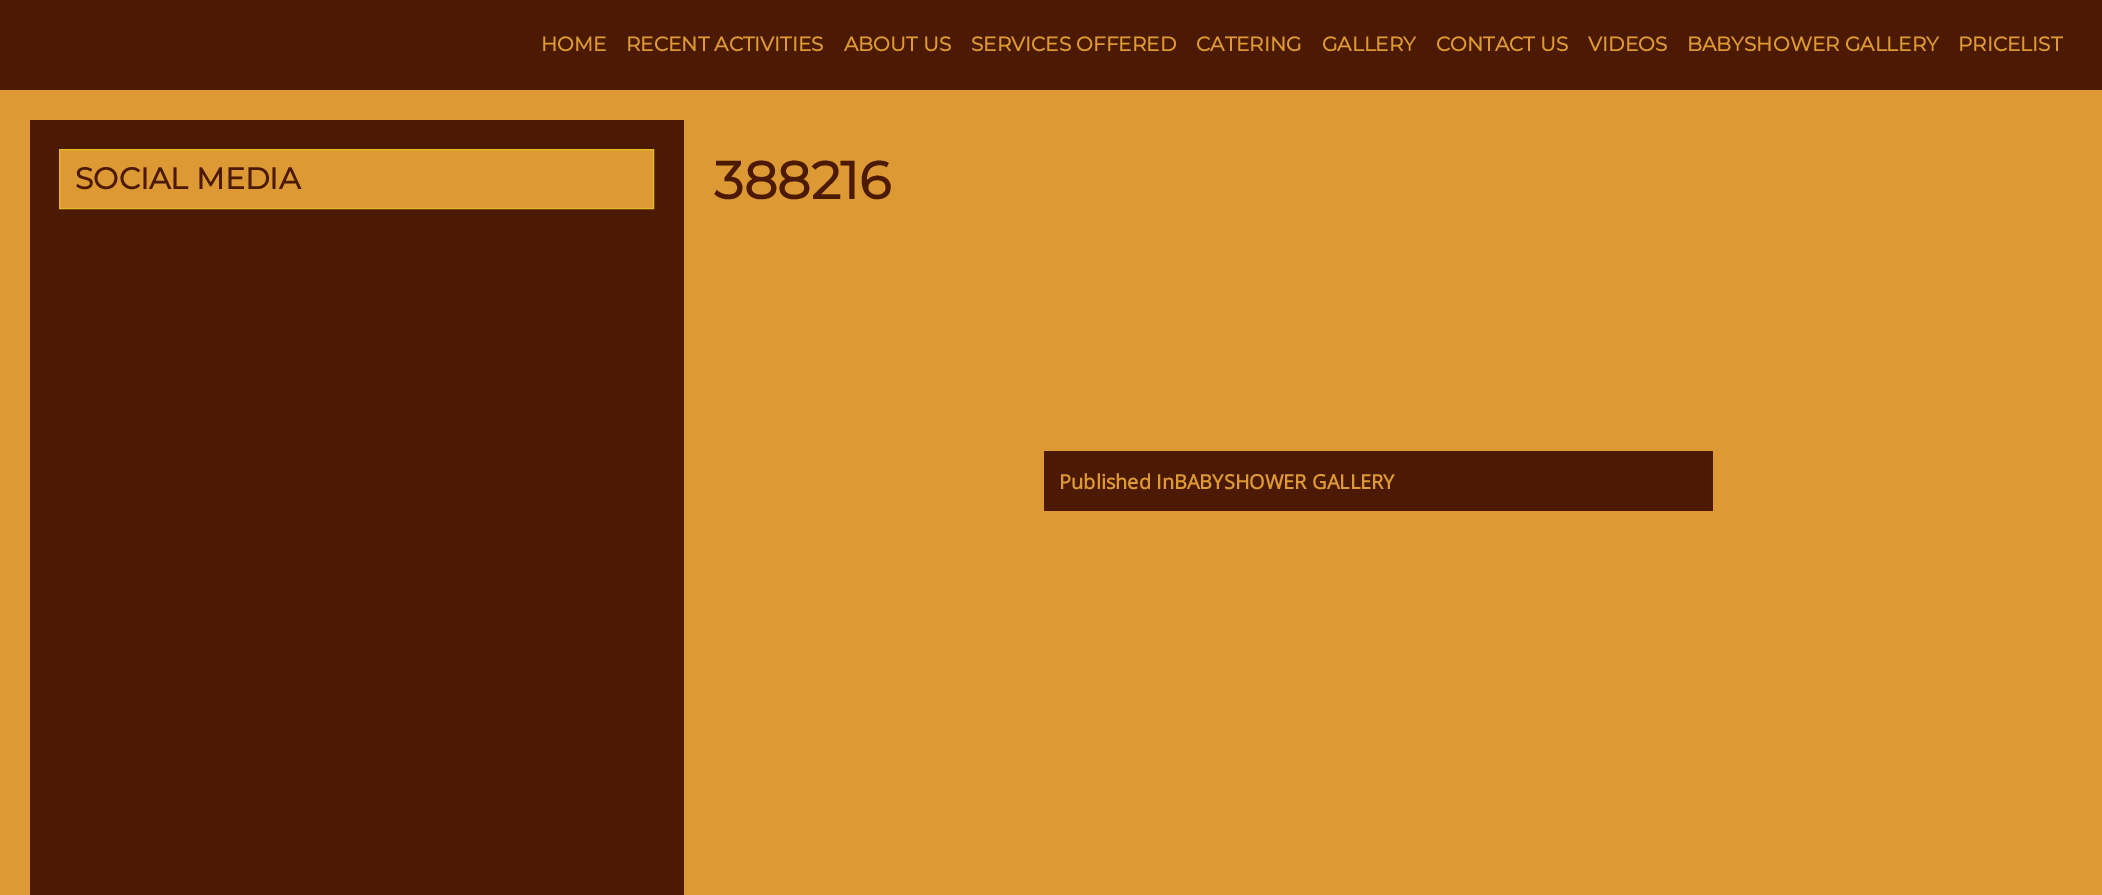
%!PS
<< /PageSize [2102 895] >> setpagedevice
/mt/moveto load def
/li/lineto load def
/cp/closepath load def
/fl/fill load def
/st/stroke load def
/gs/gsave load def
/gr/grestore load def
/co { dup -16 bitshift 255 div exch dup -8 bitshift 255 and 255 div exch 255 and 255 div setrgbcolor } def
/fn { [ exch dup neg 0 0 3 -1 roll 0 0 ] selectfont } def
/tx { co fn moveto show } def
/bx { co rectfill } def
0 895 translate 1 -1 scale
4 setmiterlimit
0 0 2102 895 16#DD9933 bx
0 0 2102 90 16#4C1903 bx
30 120 654 775 16#4C1903 bx
16#DD9933 co
59.5 149.5 mt 653.5 149.5 li 653.5 208.5 li 59.5 208.5 li cp gs fl gr
16#E5BB24 co
st
1044 451 669 60 16#4C1903 bx
(HOME) 541 51 /Montserrat-Bold 20 16#DD9933 tx
(RECENT ACTIVITIES) 626 51 /Montserrat-Bold 20 16#DD9933 tx
(ABOUT US) 844 51 /Montserrat-Bold 20 16#DD9933 tx
(SERVICES OFFERED) 971 51 /Montserrat-Bold 20 16#DD9933 tx
(CATERING) 1196 51 /Montserrat-Bold 20 16#DD9933 tx
(GALLERY) 1322 51 /Montserrat-Bold 20 16#DD9933 tx
(CONTACT US) 1436 51 /Montserrat-Bold 20 16#DD9933 tx
(VIDEOS) 1588 51 /Montserrat-Bold 20 16#DD9933 tx
(BABYSHOWER GALLERY) 1687 51 /Montserrat-Bold 20 16#DD9933 tx
(PRICELIST) 1958 51 /Montserrat-Bold 20 16#DD9933 tx
(SOCIAL MEDIA) 75 189 /Montserrat-Bold 30 16#4C1903 tx
(388216) 714 199 /Montserrat-Bold 52.5 16#4C1903 tx
(Published InBABYSHOWER GALLERY) 1059 489 /OpenSans-Bold 20 16#DD9933 tx
showpage
